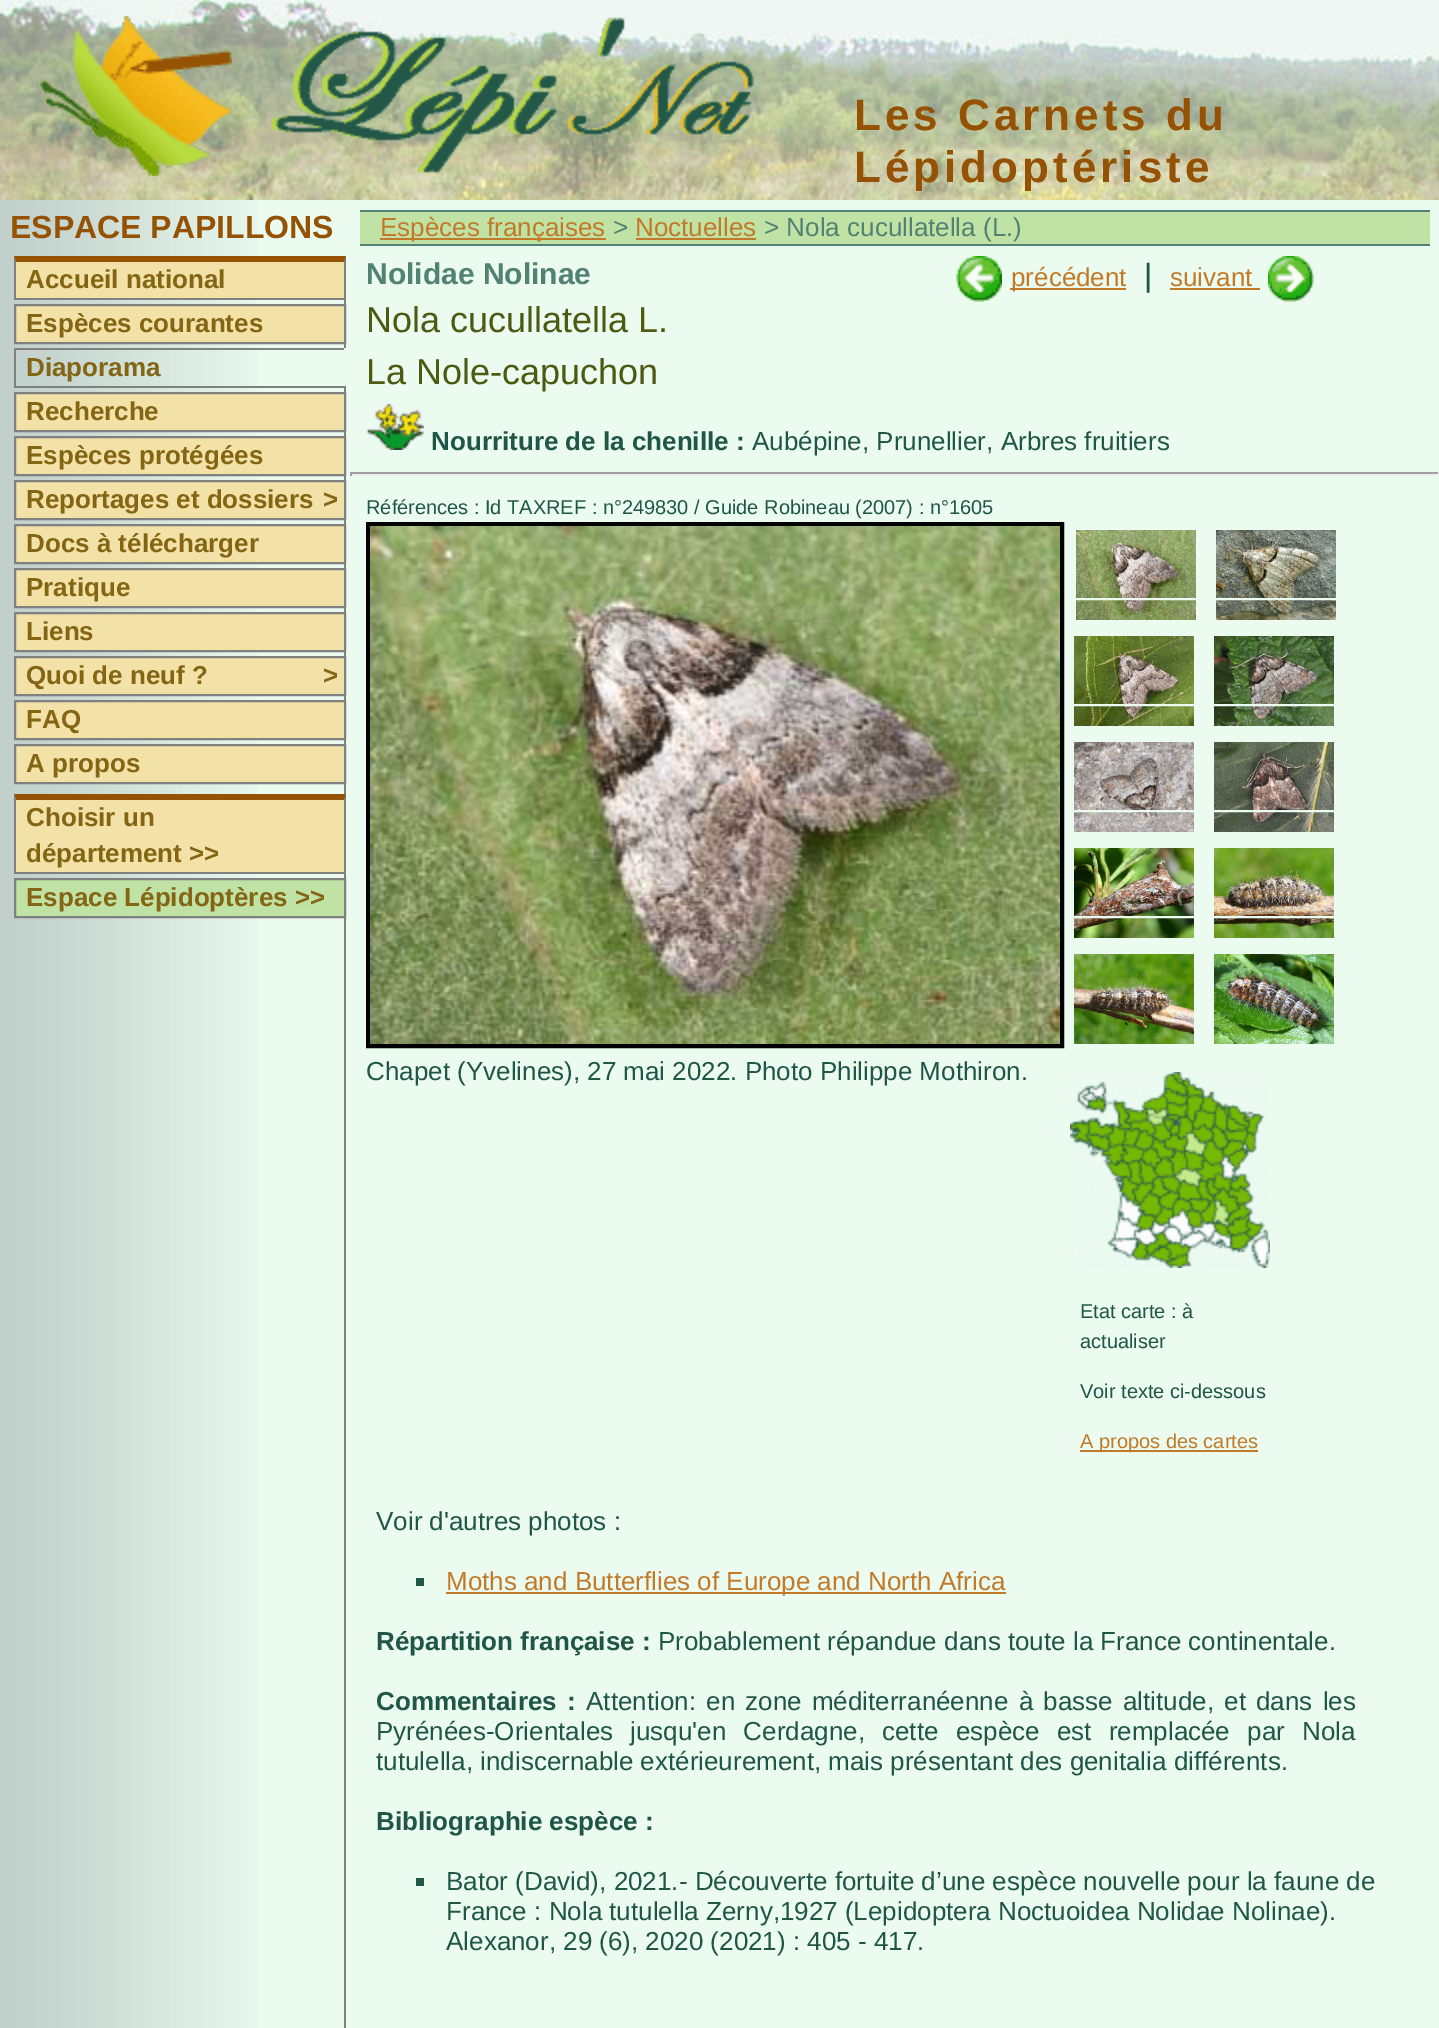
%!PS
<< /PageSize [1439 2028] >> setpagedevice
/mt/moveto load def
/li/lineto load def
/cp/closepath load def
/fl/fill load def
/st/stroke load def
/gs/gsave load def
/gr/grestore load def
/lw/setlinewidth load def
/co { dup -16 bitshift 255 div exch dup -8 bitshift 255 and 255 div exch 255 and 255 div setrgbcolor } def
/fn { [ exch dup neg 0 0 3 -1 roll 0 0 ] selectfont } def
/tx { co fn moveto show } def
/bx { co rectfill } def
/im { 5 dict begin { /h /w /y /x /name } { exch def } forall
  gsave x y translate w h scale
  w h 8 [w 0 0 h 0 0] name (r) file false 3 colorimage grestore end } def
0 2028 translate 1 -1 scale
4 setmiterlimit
0 0 1439 2028 16#EBFBF0 bx
(media/1.raw) 0 0 1439 200 im
(media/2.raw) 40 16 192 160 im
(media/3.raw) 272 17 482 156 im
(media/4.raw) 0 200 257 1828 im
344 256 2 1772 16#808080 bx
16 262 328 36 16#F3E2A7 bx
16#955204 co
14 256 mt 346 256 li 344 262 li 16 262 li cp fl
16#808080 co
346 256 mt 346 300 li 344 298 li 344 262 li cp fl
14 298 332 2 16#808080 bx
14 300 mt 14 256 li 16 262 li 16 298 li cp fl
16#F3E2A7 co
15 305 mt 345 305 li 345 343 li 15 343 li cp gs fl gr
16#808080 co
2 lw
st
14 348 332 2 16#808080 bx
344 348 2 40 16#EBFBF0 bx
14 386 332 2 16#808080 bx
14 348 2 40 16#808080 bx
16#F3E2A7 co
15 393 mt 345 393 li 345 431 li 15 431 li cp gs fl gr
16#808080 co
st
16#F3E2A7 co
15 437 mt 345 437 li 345 475 li 15 475 li cp gs fl gr
16#808080 co
st
16#F3E2A7 co
15 481 mt 345 481 li 345 519 li 15 519 li cp gs fl gr
16#808080 co
st
16#F3E2A7 co
15 525 mt 345 525 li 345 563 li 15 563 li cp gs fl gr
16#808080 co
st
16#F3E2A7 co
15 569 mt 345 569 li 345 607 li 15 607 li cp gs fl gr
16#808080 co
st
16#F3E2A7 co
15 613 mt 345 613 li 345 651 li 15 651 li cp gs fl gr
16#808080 co
st
16#F3E2A7 co
15 657 mt 345 657 li 345 695 li 15 695 li cp gs fl gr
16#808080 co
st
16#F3E2A7 co
15 701 mt 345 701 li 345 739 li 15 739 li cp gs fl gr
16#808080 co
st
16#F3E2A7 co
15 745 mt 345 745 li 345 783 li 15 783 li cp gs fl gr
16#808080 co
st
16 800 328 72 16#F3E2A7 bx
16#955204 co
14 794 mt 346 794 li 344 800 li 16 800 li cp fl
16#808080 co
346 794 mt 346 874 li 344 872 li 344 800 li cp fl
14 872 332 2 16#808080 bx
14 874 mt 14 794 li 16 800 li 16 872 li cp fl
16#C1E2A5 co
15 879 mt 345 879 li 345 917 li 15 917 li cp gs fl gr
16#808080 co
st
360 212 1070 32 16#C1E2A5 bx
360 210 1070 2 16#518274 bx
360 244 1070 2 16#518274 bx
380 238 226 2 16#C27A29 bx
636 238 120 2 16#C27A29 bx
(media/5.raw) 366 404 58 46 im
(media/6.raw) 956 256 46 46 im
1010 288 116 2 16#C27A29 bx
1170 288 90 2 16#C27A29 bx
(media/7.raw) 1268 256 46 46 im
350 472 1089 2 16#9F9F9F bx
1438 472 1 4 16#EEEEEE bx
350 474 1089 2 16#EEEEEE bx
350 472 2 4 16#9F9F9F bx
(media/8.raw) 1076 530 120 90 im
(media/9.raw) 1216 530 120 90 im
16#EBFBF0 co
1071 599 272 138 rectstroke
(media/10.raw) 1074 636 120 90 im
(media/11.raw) 1214 636 120 90 im
1071 705 270 138 rectstroke
(media/12.raw) 1074 742 120 90 im
(media/13.raw) 1214 742 120 90 im
1071 811 270 138 rectstroke
(media/14.raw) 1074 848 120 90 im
(media/15.raw) 1214 848 120 90 im
1071 917 270 138 rectstroke
(media/16.raw) 1074 954 120 90 im
(media/17.raw) 1214 954 120 90 im
16#000000 co
4 lw
368 524 694 522 rectstroke
(media/18.raw) 370 526 690 518 im
(media/19.raw) 1070 1072 200 196 im
1080 1450 178 2 16#C27A29 bx
416 1578 8 8 16#1F5647 bx
446 1592 560 2 16#C27A29 bx
416 1878 8 8 16#1F5647 bx
/LiberationSans-Bold 44 fn
16#955204 co
854 130 mt 4 0 (Les Carnets du) ashow
854 182 mt 4 0 (Lépidoptériste) ashow
(ESPACE PAPILLONS) 10 238 /LiberationSans-Bold 32 16#955204 tx
(Accueil national) 26 288 /LiberationSans-Bold 26 16#836514 tx
(Espèces courantes) 26 332 /LiberationSans-Bold 26 16#836514 tx
(Diaporama) 26 376 /LiberationSans-Bold 26 16#836514 tx
(Recherche) 26 420 /LiberationSans-Bold 26 16#836514 tx
(Espèces protégées) 26 464 /LiberationSans-Bold 26 16#836514 tx
(Reportages et dossiers) 26 508 /LiberationSans-Bold 26 16#836514 tx
(>) 323 508 /LiberationSans-Bold 26 16#836514 tx
(Docs à télécharger) 26 552 /LiberationSans-Bold 26 16#836514 tx
(Pratique) 26 596 /LiberationSans-Bold 26 16#836514 tx
(Liens) 26 640 /LiberationSans-Bold 26 16#836514 tx
(Quoi de neuf ?) 26 684 /LiberationSans-Bold 26 16#836514 tx
(>) 323 684 /LiberationSans-Bold 26 16#836514 tx
(FAQ) 26 728 /LiberationSans-Bold 26 16#836514 tx
(A propos) 26 772 /LiberationSans-Bold 26 16#836514 tx
(Choisir un) 26 826 /LiberationSans-Bold 26 16#836514 tx
(département >>) 26 862 /LiberationSans-Bold 26 16#836514 tx
(Espace Lépidoptères >>) 26 906 /LiberationSans-Bold 26 16#836514 tx
(Espèces françaises) 380 236 /LiberationSans-Regular 26 16#C27A29 tx
(>) 613 236 /LiberationSans-Regular 26 16#518274 tx
(Noctuelles) 635 236 /LiberationSans-Regular 26 16#C27A29 tx
(> Nola cucullatella \(L.\)) 764 236 /LiberationSans-Regular 26 16#518274 tx
(Nolidae Nolinae) 366 284 /LiberationSans-Bold 30 16#518274 tx
(Nola cucullatella L.) 366 332 /LiberationSans-Regular 36 16#4D5A12 tx
(La Nole-capuchon) 366 384 /LiberationSans-Regular 36 16#4D5A12 tx
(Nourriture de la chenille :) 431 450 /LiberationSans-Bold 26 16#1F5647 tx
(Aubépine, Prunellier, Arbres fruitiers) 752 450 /LiberationSans-Regular 26 16#1F5647 tx
(précédent) 1011 286 /LiberationSans-Regular 26 16#C27A29 tx
(|) 1144 286 /LiberationSans-Regular 32 16#1F5647 tx
(suivant) 1170 286 /LiberationSans-Regular 26 16#C27A29 tx
(Références : Id TAXREF : n°249830 / Guide Robineau \(2007\) : n°1605) 366 514 /LiberationSans-Regular 20 16#1F5647 tx
(Chapet \(Yvelines\), 27 mai 2022. Photo Philippe Mothiron.) 366 1080 /LiberationSans-Regular 26 16#1F5647 tx
(Etat carte : à) 1080 1318 /LiberationSans-Regular 20 16#1F5647 tx
(actualiser) 1080 1348 /LiberationSans-Regular 20 16#1F5647 tx
(Voir texte ci-dessous) 1080 1398 /LiberationSans-Regular 20 16#1F5647 tx
(A propos des cartes) 1080 1448 /LiberationSans-Regular 20 16#C27A29 tx
(Voir d'autres photos :) 376 1530 /LiberationSans-Regular 26 16#1F5647 tx
(Moths and Butterflies of Europe and North Africa) 446 1590 /LiberationSans-Regular 26 16#C27A29 tx
(Répartition française :) 376 1650 /LiberationSans-Bold 26 16#1F5647 tx
(Probablement répandue dans toute la France continentale.) 658 1650 /LiberationSans-Regular 26 16#1F5647 tx
/LiberationSans-Bold 26 fn
376 1710 mt 3 0 32 (Commentaires :) widthshow
/LiberationSans-Regular 26 fn
586 1710 mt 3 0 32 (Attention: en zone méditerranéenne à basse altitude, et dans les) widthshow
376 1740 mt 10 0 32 (Pyrénées-Orientales jusqu'en Cerdagne, cette espèce est remplacée par Nola) widthshow
(tutulella, indiscernable extérieurement, mais présentant des genitalia différents.) 376 1770 /LiberationSans-Regular 26 16#1F5647 tx
(Bibliographie espèce :) 376 1830 /LiberationSans-Bold 26 16#1F5647 tx
(Bator \(David\), 2021.- Découverte fortuite d’une espèce nouvelle pour la faune de) 446 1890 /LiberationSans-Regular 26 16#1F5647 tx
(France : Nola tutulella Zerny,1927 \(Lepidoptera Noctuoidea Nolidae Nolinae\).) 446 1920 /LiberationSans-Regular 26 16#1F5647 tx
(Alexanor, 29 \(6\), 2020 \(2021\) : 405 - 417.) 446 1950 /LiberationSans-Regular 26 16#1F5647 tx
showpage
